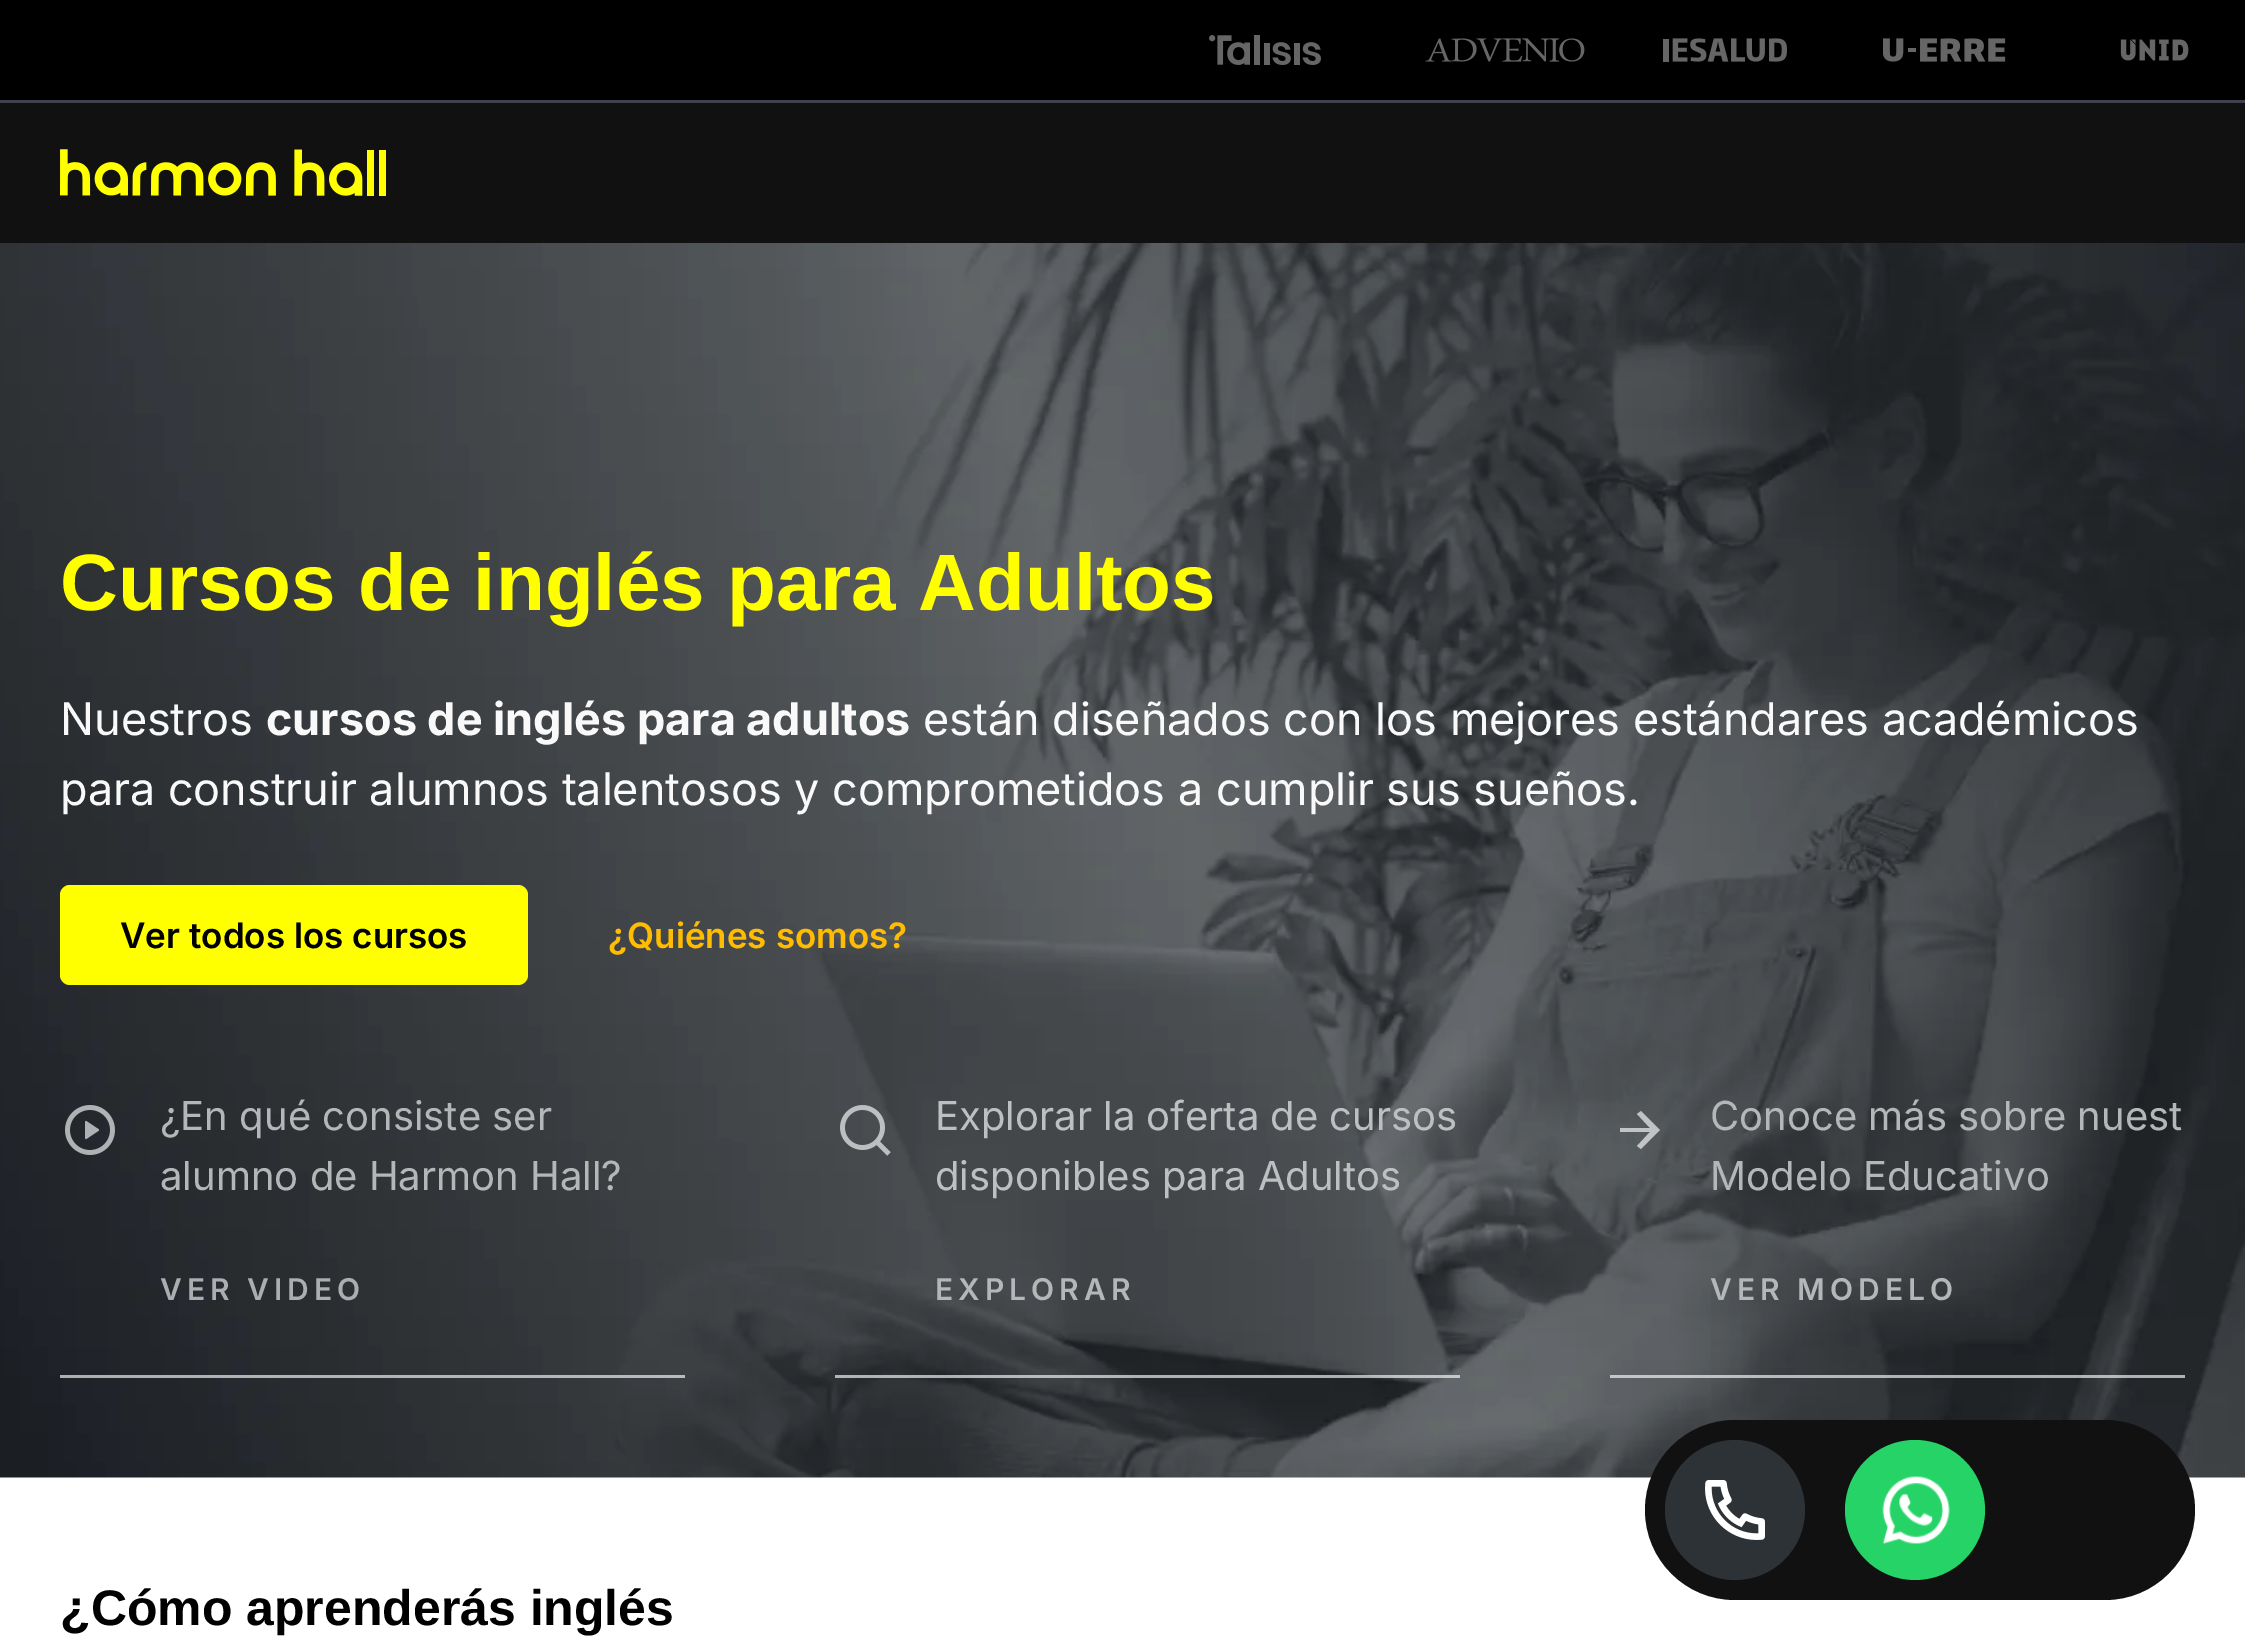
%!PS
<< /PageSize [2245 1638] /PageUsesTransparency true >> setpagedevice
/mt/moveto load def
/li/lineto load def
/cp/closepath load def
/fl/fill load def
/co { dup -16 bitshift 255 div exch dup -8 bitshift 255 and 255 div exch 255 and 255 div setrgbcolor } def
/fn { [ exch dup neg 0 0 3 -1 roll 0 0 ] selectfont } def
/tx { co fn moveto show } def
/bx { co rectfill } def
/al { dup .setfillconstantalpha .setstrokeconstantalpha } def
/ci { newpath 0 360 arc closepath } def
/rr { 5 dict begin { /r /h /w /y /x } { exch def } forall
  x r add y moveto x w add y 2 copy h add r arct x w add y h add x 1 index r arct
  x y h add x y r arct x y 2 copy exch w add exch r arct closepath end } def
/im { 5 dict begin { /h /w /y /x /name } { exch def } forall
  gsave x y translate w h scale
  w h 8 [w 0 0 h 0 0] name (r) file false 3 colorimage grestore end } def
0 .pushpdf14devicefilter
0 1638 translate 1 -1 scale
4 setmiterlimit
0 0 2245 1638 16#FFFFFF bx
0 0 2245 100 16#000000 bx
0 100 2245 3 16#404150 bx
(media/1.raw) 1209 35 112 30 im
(media/2.raw) 1425 38 160 24 im
(media/3.raw) 1663 38 124 24 im
(media/4.raw) 1883 38 123 24 im
(media/5.raw) 2120 39 69 22 im
0 103 2245 140 16#111111 bx
(media/6.raw) 60 149 326 47 im
(media/7.raw) 0 243 2245 1235 im
16#FFFF00 co
60 885 468 100 10 rr fl
0.64 al
60 1375 625 3 16#FFFFFF bx
1 al
(media/8.raw) 65 1105 50 50 im
0.64 al
835 1375 625 3 16#FFFFFF bx
1 al
(media/9.raw) 840 1105 51 51 im
0.64 al
1610 1375 575 3 16#FFFFFF bx
1650 1128 mt 1637 1114 li 1641 1111 li 1660 1130 li 1641 1149 li 1637 1146 li 1650 1132 li 1620 1132 li 1620 1128 li cp fl
1 al
16#111111 co
1645 1420 550 180 90 rr fl
16#2C3236 co
1735 1510 70 ci fl
(media/10.raw) 1705 1480 60 60 im
16#25D366 co
1915 1510 70 ci fl
(media/11.raw) 1882 1476 68 68 im
(Cursos de inglés para Adultos) 60 610 /LiberationSans-Bold 80 16#FFFF00 tx
(Nuestros) 60 735 /Inter-Regular 45 16#F9F9F9 tx
(cursos de inglés para adultos) 266 735 /Inter-Bold 45 16#F9F9F9 tx
(están diseñados con los mejores estándares académicos) 923 735 /Inter-Regular 45 16#F9F9F9 tx
(para construir alumnos talentosos y comprometidos a cumplir sus sueños.) 60 805 /Inter-Regular 45 16#F9F9F9 tx
(Ver todos los cursos) 120 948 /Inter-SemiBold 35 16#000000 tx
(¿Quiénes somos?) 608 948 /Inter-SemiBold 35 16#FFBC00 tx
(¿En qué consiste ser) 160 1130 /Inter-Regular 40 16#B4B6B7 tx
(alumno de Harmon Hall?) 160 1190 /Inter-Regular 40 16#B4B6B7 tx
/Inter-SemiBold 30 fn
16#ABADAE co
160 1300 mt 5 0 (VER VIDEO) ashow
(Explorar la oferta de cursos) 935 1130 /Inter-Regular 40 16#BDBFC0 tx
(disponibles para Adultos) 935 1190 /Inter-Regular 40 16#BDBFC0 tx
/Inter-SemiBold 30 fn
16#B4B6B7 co
935 1300 mt 5 0 (EXPLORAR) ashow
(Conoce más sobre nuest) 1710 1130 /Inter-Regular 40 16#B4B6B7 tx
(Modelo Educativo) 1710 1190 /Inter-Regular 40 16#B4B6B7 tx
/Inter-SemiBold 30 fn
1710 1300 mt 5 0 (VER MODELO) ashow
(¿Cómo aprenderás inglés) 60 1625 /LiberationSans-Bold 50 16#000000 tx
.poppdf14devicefilter showpage
